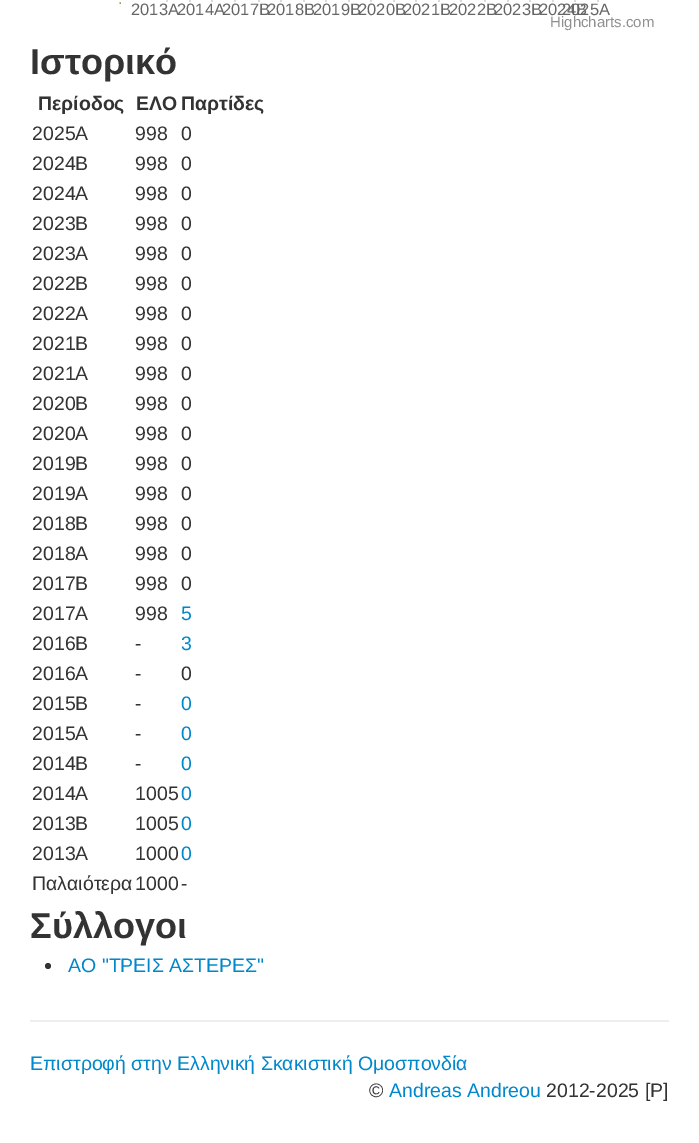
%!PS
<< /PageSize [699 1143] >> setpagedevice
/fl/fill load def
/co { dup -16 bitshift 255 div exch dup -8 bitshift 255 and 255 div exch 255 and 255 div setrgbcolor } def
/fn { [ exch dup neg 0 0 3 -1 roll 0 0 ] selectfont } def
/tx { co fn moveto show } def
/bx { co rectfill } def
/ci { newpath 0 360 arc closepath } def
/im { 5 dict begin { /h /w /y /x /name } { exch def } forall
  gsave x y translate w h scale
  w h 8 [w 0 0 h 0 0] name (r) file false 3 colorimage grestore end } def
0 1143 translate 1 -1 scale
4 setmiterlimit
0 0 699 1143 16#FFFFFF bx
(media/1.raw) 166 0 433 2 im
16#333333 co
48 966 3 ci fl
30 1020 639 2 16#EEEEEE bx
(.) 118 4 /LiberationSans-Regular 16.5 16#89A54E tx
(2013A) 131 15 /LiberationSans-Regular 16.5 16#666666 tx
(2014A) 177 15 /LiberationSans-Regular 16.5 16#666666 tx
(2017B) 222 15 /LiberationSans-Regular 16.5 16#666666 tx
(2018B) 267 15 /LiberationSans-Regular 16.5 16#666666 tx
(2019B) 313 15 /LiberationSans-Regular 16.5 16#666666 tx
(2020B) 358 15 /LiberationSans-Regular 16.5 16#666666 tx
(2021B) 403 15 /LiberationSans-Regular 16.5 16#666666 tx
(2022B) 449 15 /LiberationSans-Regular 16.5 16#666666 tx
(2023B) 494 15 /LiberationSans-Regular 16.5 16#666666 tx
(2024B) 539 15 /LiberationSans-Regular 16.5 16#666666 tx
(2025A) 562 15 /LiberationSans-Regular 16.5 16#666666 tx
(Highcharts.com) 550 27 /LiberationSans-Regular 15 16#909090 tx
(Ιστορικό) 30 74 /LiberationSans-Bold 36 16#333333 tx
(Περίοδος) 38 110 /LiberationSans-Bold 19.5 16#333333 tx
(ΕΛΟ) 136 110 /LiberationSans-Bold 19.5 16#333333 tx
(Παρτίδες) 181 110 /LiberationSans-Bold 19.5 16#333333 tx
(2025A) 32 140 /LiberationSans-Regular 19.5 16#333333 tx
(998) 135 140 /LiberationSans-Regular 19.5 16#333333 tx
(0) 181 140 /LiberationSans-Regular 19.5 16#333333 tx
(2024B) 32 170 /LiberationSans-Regular 19.5 16#333333 tx
(998) 135 170 /LiberationSans-Regular 19.5 16#333333 tx
(0) 181 170 /LiberationSans-Regular 19.5 16#333333 tx
(2024A) 32 200 /LiberationSans-Regular 19.5 16#333333 tx
(998) 135 200 /LiberationSans-Regular 19.5 16#333333 tx
(0) 181 200 /LiberationSans-Regular 19.5 16#333333 tx
(2023B) 32 230 /LiberationSans-Regular 19.5 16#333333 tx
(998) 135 230 /LiberationSans-Regular 19.5 16#333333 tx
(0) 181 230 /LiberationSans-Regular 19.5 16#333333 tx
(2023Α) 32 260 /LiberationSans-Regular 19.5 16#333333 tx
(998) 135 260 /LiberationSans-Regular 19.5 16#333333 tx
(0) 181 260 /LiberationSans-Regular 19.5 16#333333 tx
(2022B) 32 290 /LiberationSans-Regular 19.5 16#333333 tx
(998) 135 290 /LiberationSans-Regular 19.5 16#333333 tx
(0) 181 290 /LiberationSans-Regular 19.5 16#333333 tx
(2022A) 32 320 /LiberationSans-Regular 19.5 16#333333 tx
(998) 135 320 /LiberationSans-Regular 19.5 16#333333 tx
(0) 181 320 /LiberationSans-Regular 19.5 16#333333 tx
(2021B) 32 350 /LiberationSans-Regular 19.5 16#333333 tx
(998) 135 350 /LiberationSans-Regular 19.5 16#333333 tx
(0) 181 350 /LiberationSans-Regular 19.5 16#333333 tx
(2021A) 32 380 /LiberationSans-Regular 19.5 16#333333 tx
(998) 135 380 /LiberationSans-Regular 19.5 16#333333 tx
(0) 181 380 /LiberationSans-Regular 19.5 16#333333 tx
(2020B) 32 410 /LiberationSans-Regular 19.5 16#333333 tx
(998) 135 410 /LiberationSans-Regular 19.5 16#333333 tx
(0) 181 410 /LiberationSans-Regular 19.5 16#333333 tx
(2020A) 32 440 /LiberationSans-Regular 19.5 16#333333 tx
(998) 135 440 /LiberationSans-Regular 19.5 16#333333 tx
(0) 181 440 /LiberationSans-Regular 19.5 16#333333 tx
(2019B) 32 470 /LiberationSans-Regular 19.5 16#333333 tx
(998) 135 470 /LiberationSans-Regular 19.5 16#333333 tx
(0) 181 470 /LiberationSans-Regular 19.5 16#333333 tx
(2019A) 32 500 /LiberationSans-Regular 19.5 16#333333 tx
(998) 135 500 /LiberationSans-Regular 19.5 16#333333 tx
(0) 181 500 /LiberationSans-Regular 19.5 16#333333 tx
(2018B) 32 530 /LiberationSans-Regular 19.5 16#333333 tx
(998) 135 530 /LiberationSans-Regular 19.5 16#333333 tx
(0) 181 530 /LiberationSans-Regular 19.5 16#333333 tx
(2018A) 32 560 /LiberationSans-Regular 19.5 16#333333 tx
(998) 135 560 /LiberationSans-Regular 19.5 16#333333 tx
(0) 181 560 /LiberationSans-Regular 19.5 16#333333 tx
(2017B) 32 590 /LiberationSans-Regular 19.5 16#333333 tx
(998) 135 590 /LiberationSans-Regular 19.5 16#333333 tx
(0) 181 590 /LiberationSans-Regular 19.5 16#333333 tx
(2017A) 32 620 /LiberationSans-Regular 19.5 16#333333 tx
(998) 135 620 /LiberationSans-Regular 19.5 16#333333 tx
(5) 181 620 /LiberationSans-Regular 19.5 16#0088CC tx
(2016B) 32 650 /LiberationSans-Regular 19.5 16#333333 tx
(-) 135 650 /LiberationSans-Regular 19.5 16#333333 tx
(3) 181 650 /LiberationSans-Regular 19.5 16#0088CC tx
(2016A) 32 680 /LiberationSans-Regular 19.5 16#333333 tx
(-) 135 680 /LiberationSans-Regular 19.5 16#333333 tx
(0) 181 680 /LiberationSans-Regular 19.5 16#333333 tx
(2015B) 32 710 /LiberationSans-Regular 19.5 16#333333 tx
(-) 135 710 /LiberationSans-Regular 19.5 16#333333 tx
(0) 181 710 /LiberationSans-Regular 19.5 16#0088CC tx
(2015A) 32 740 /LiberationSans-Regular 19.5 16#333333 tx
(-) 135 740 /LiberationSans-Regular 19.5 16#333333 tx
(0) 181 740 /LiberationSans-Regular 19.5 16#0088CC tx
(2014B) 32 770 /LiberationSans-Regular 19.5 16#333333 tx
(-) 135 770 /LiberationSans-Regular 19.5 16#333333 tx
(0) 181 770 /LiberationSans-Regular 19.5 16#0088CC tx
(2014A) 32 800 /LiberationSans-Regular 19.5 16#333333 tx
(1005) 135 800 /LiberationSans-Regular 19.5 16#333333 tx
(0) 181 800 /LiberationSans-Regular 19.5 16#0088CC tx
(2013B) 32 830 /LiberationSans-Regular 19.5 16#333333 tx
(1005) 135 830 /LiberationSans-Regular 19.5 16#333333 tx
(0) 181 830 /LiberationSans-Regular 19.5 16#0088CC tx
(2013A) 32 860 /LiberationSans-Regular 19.5 16#333333 tx
(1000) 135 860 /LiberationSans-Regular 19.5 16#333333 tx
(0) 181 860 /LiberationSans-Regular 19.5 16#0088CC tx
(Παλαιότερα) 32 890 /LiberationSans-Regular 19.5 16#333333 tx
(1000) 135 890 /LiberationSans-Regular 19.5 16#333333 tx
(-) 181 890 /LiberationSans-Regular 19.5 16#333333 tx
(Σύλλογοι) 30 938 /LiberationSans-Bold 36 16#333333 tx
(ΑΟ "ΤΡΕΙΣ ΑΣΤΕΡΕΣ") 68 972 /LiberationSans-Regular 19.5 16#0088CC tx
(Επιστροφή στην Ελληνική Σκακιστική Ομοσπονδία) 30 1070 /LiberationSans-Regular 19.5 16#0088CC tx
(©) 369 1097 /LiberationSans-Regular 19.5 16#333333 tx
(Andreas Andreou) 389 1097 /LiberationSans-Regular 19.5 16#0088CC tx
(2012-2025 [P]) 546 1097 /LiberationSans-Regular 19.5 16#333333 tx
showpage
